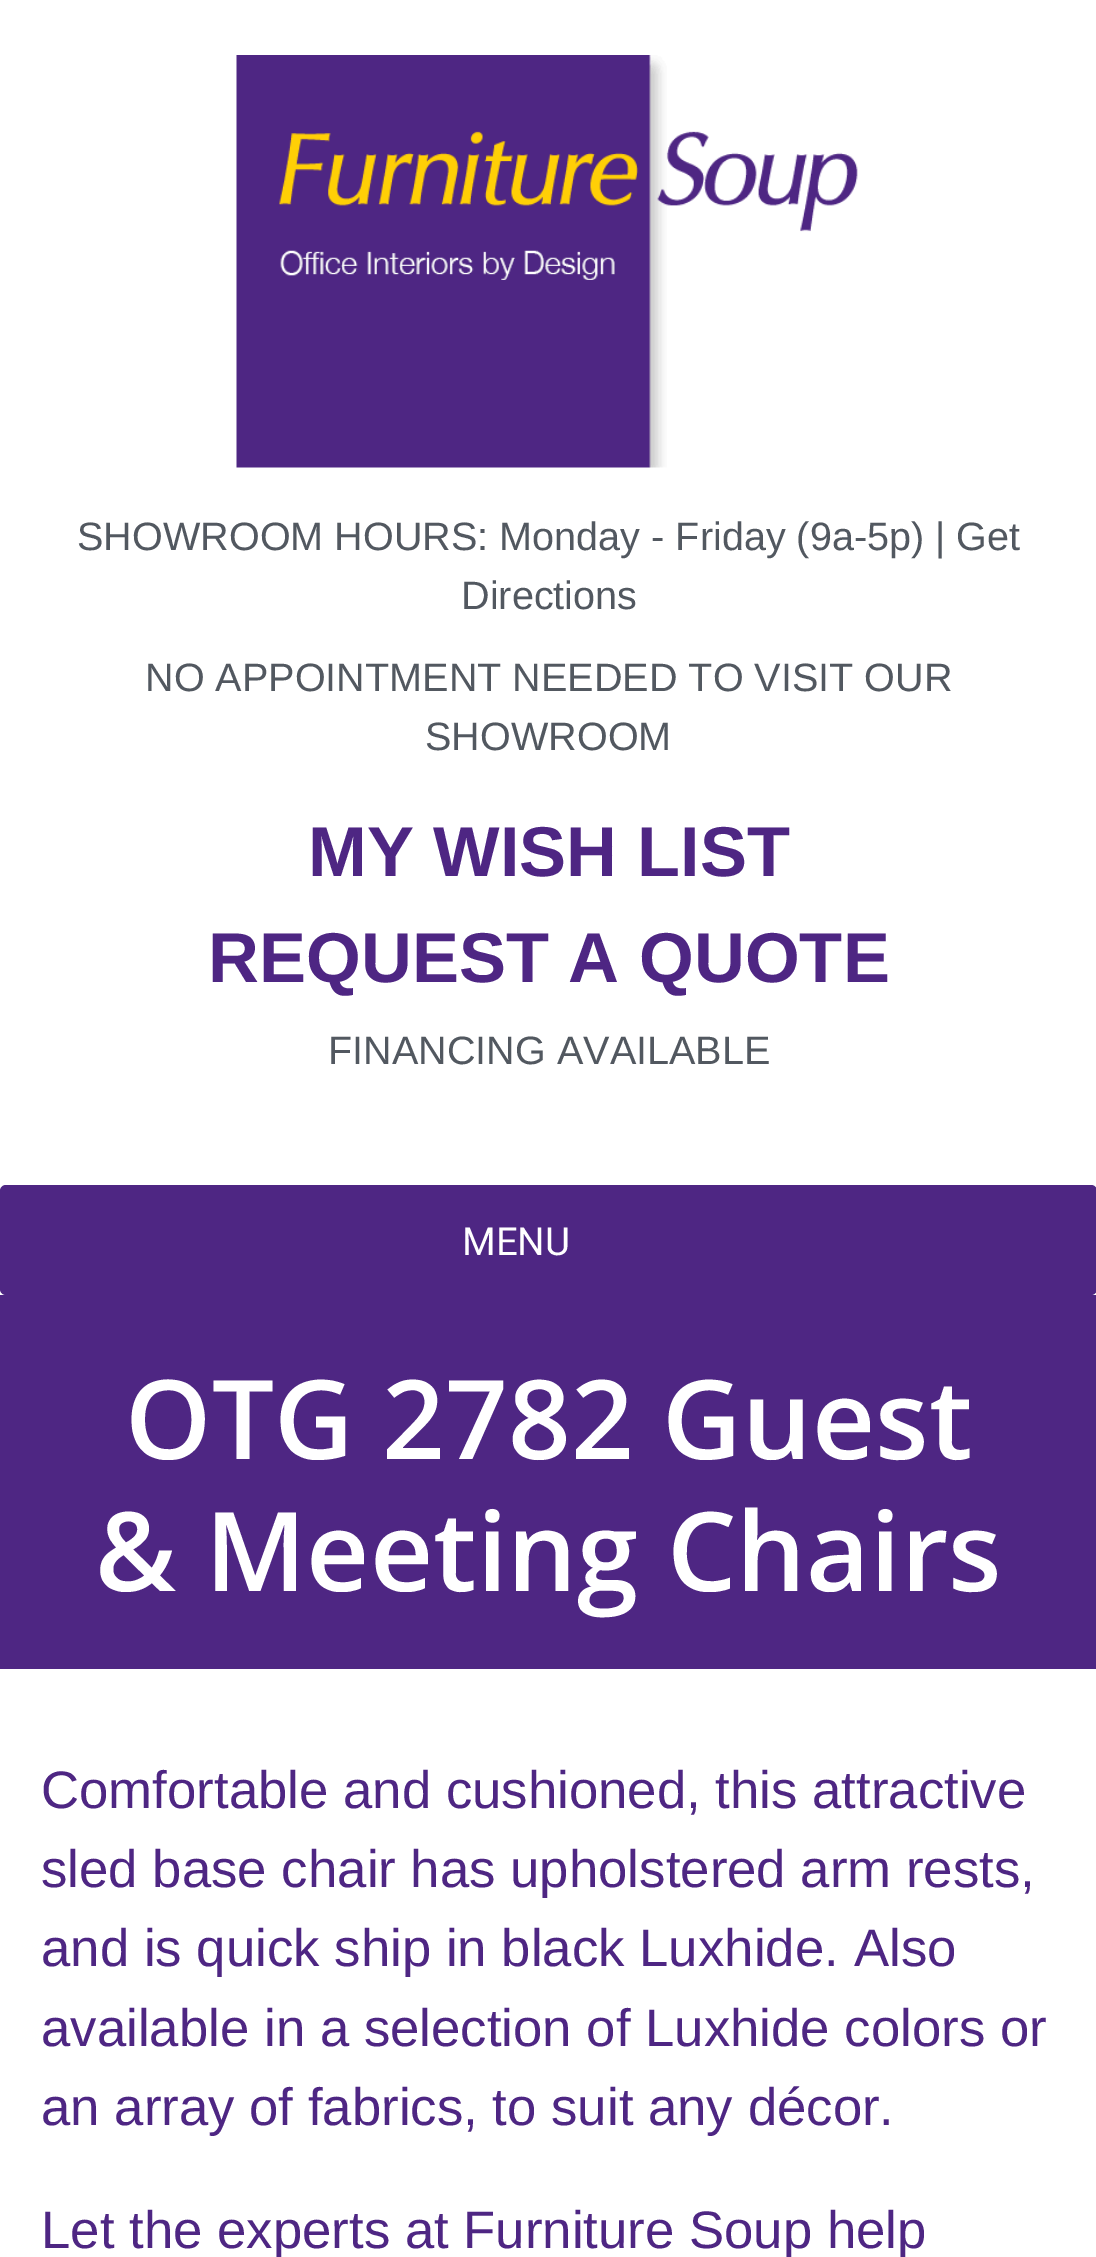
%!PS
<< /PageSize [1096 2257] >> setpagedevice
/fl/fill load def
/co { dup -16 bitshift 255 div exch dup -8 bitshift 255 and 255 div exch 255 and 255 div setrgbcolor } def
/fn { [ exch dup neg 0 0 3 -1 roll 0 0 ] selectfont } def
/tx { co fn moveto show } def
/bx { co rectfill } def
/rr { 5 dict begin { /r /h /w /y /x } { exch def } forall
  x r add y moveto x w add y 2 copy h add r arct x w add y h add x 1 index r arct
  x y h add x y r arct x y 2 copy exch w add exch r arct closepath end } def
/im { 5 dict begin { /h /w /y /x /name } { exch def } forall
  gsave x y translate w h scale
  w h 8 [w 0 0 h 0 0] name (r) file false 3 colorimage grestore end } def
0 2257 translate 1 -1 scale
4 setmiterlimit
0 0 1096 2257 16#FFFFFF bx
(media/1.raw) 236 55 622 413 im
16#4E2683 co
0 1185 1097 110 6 rr fl
0 1295 1096 374 16#4E2683 bx
(SHOWROOM HOURS: Monday - Friday \(9a-5p\) | Get) 77 550 /LiberationSans-Regular 39.6 16#525860 tx
(Directions) 461 609 /LiberationSans-Regular 39.6 16#525860 tx
(NO APPOINTMENT NEEDED TO VISIT OUR) 145 691 /LiberationSans-Regular 39.6 16#525860 tx
(SHOWROOM) 425 750 /LiberationSans-Regular 39.6 16#525860 tx
(MY WISH LIST) 308 876 /LiberationSans-Bold 70.5 16#4E2683 tx
(REQUEST A QUOTE) 208 982 /LiberationSans-Bold 70.5 16#4E2683 tx
(FINANCING AVAILABLE) 328 1064 /LiberationSans-Regular 39.6 16#525860 tx
(MENU) 462 1255 /Roboto-Regular 38.5 16#FFFFFF tx
(OTG 2782 Guest) 125 1459 /OpenSans-SemiBold 110 16#FFFFFF tx
(& Meeting Chairs) 95 1591 /OpenSans-SemiBold 110 16#FFFFFF tx
(Comfortable and cushioned, this attractive) 41 1808 /LiberationSans-Regular 52.75 16#4E2683 tx
(sled base chair has upholstered arm rests,) 41 1887 /LiberationSans-Regular 52.75 16#4E2683 tx
(and is quick ship in black Luxhide.) 41 1966 /LiberationSans-Regular 52.75 16#4E2683 tx
(Also) 854 1966 /LiberationSans-Regular 52.75 16#4E2683 tx
(available in a selection of Luxhide colors or) 41 2046 /LiberationSans-Regular 52.75 16#4E2683 tx
(an array of fabrics, to suit any décor.) 41 2125 /LiberationSans-Regular 52.75 16#4E2683 tx
(Let the experts at Furniture Soup help) 41 2248 /LiberationSans-Regular 52.75 16#4E2683 tx
showpage
